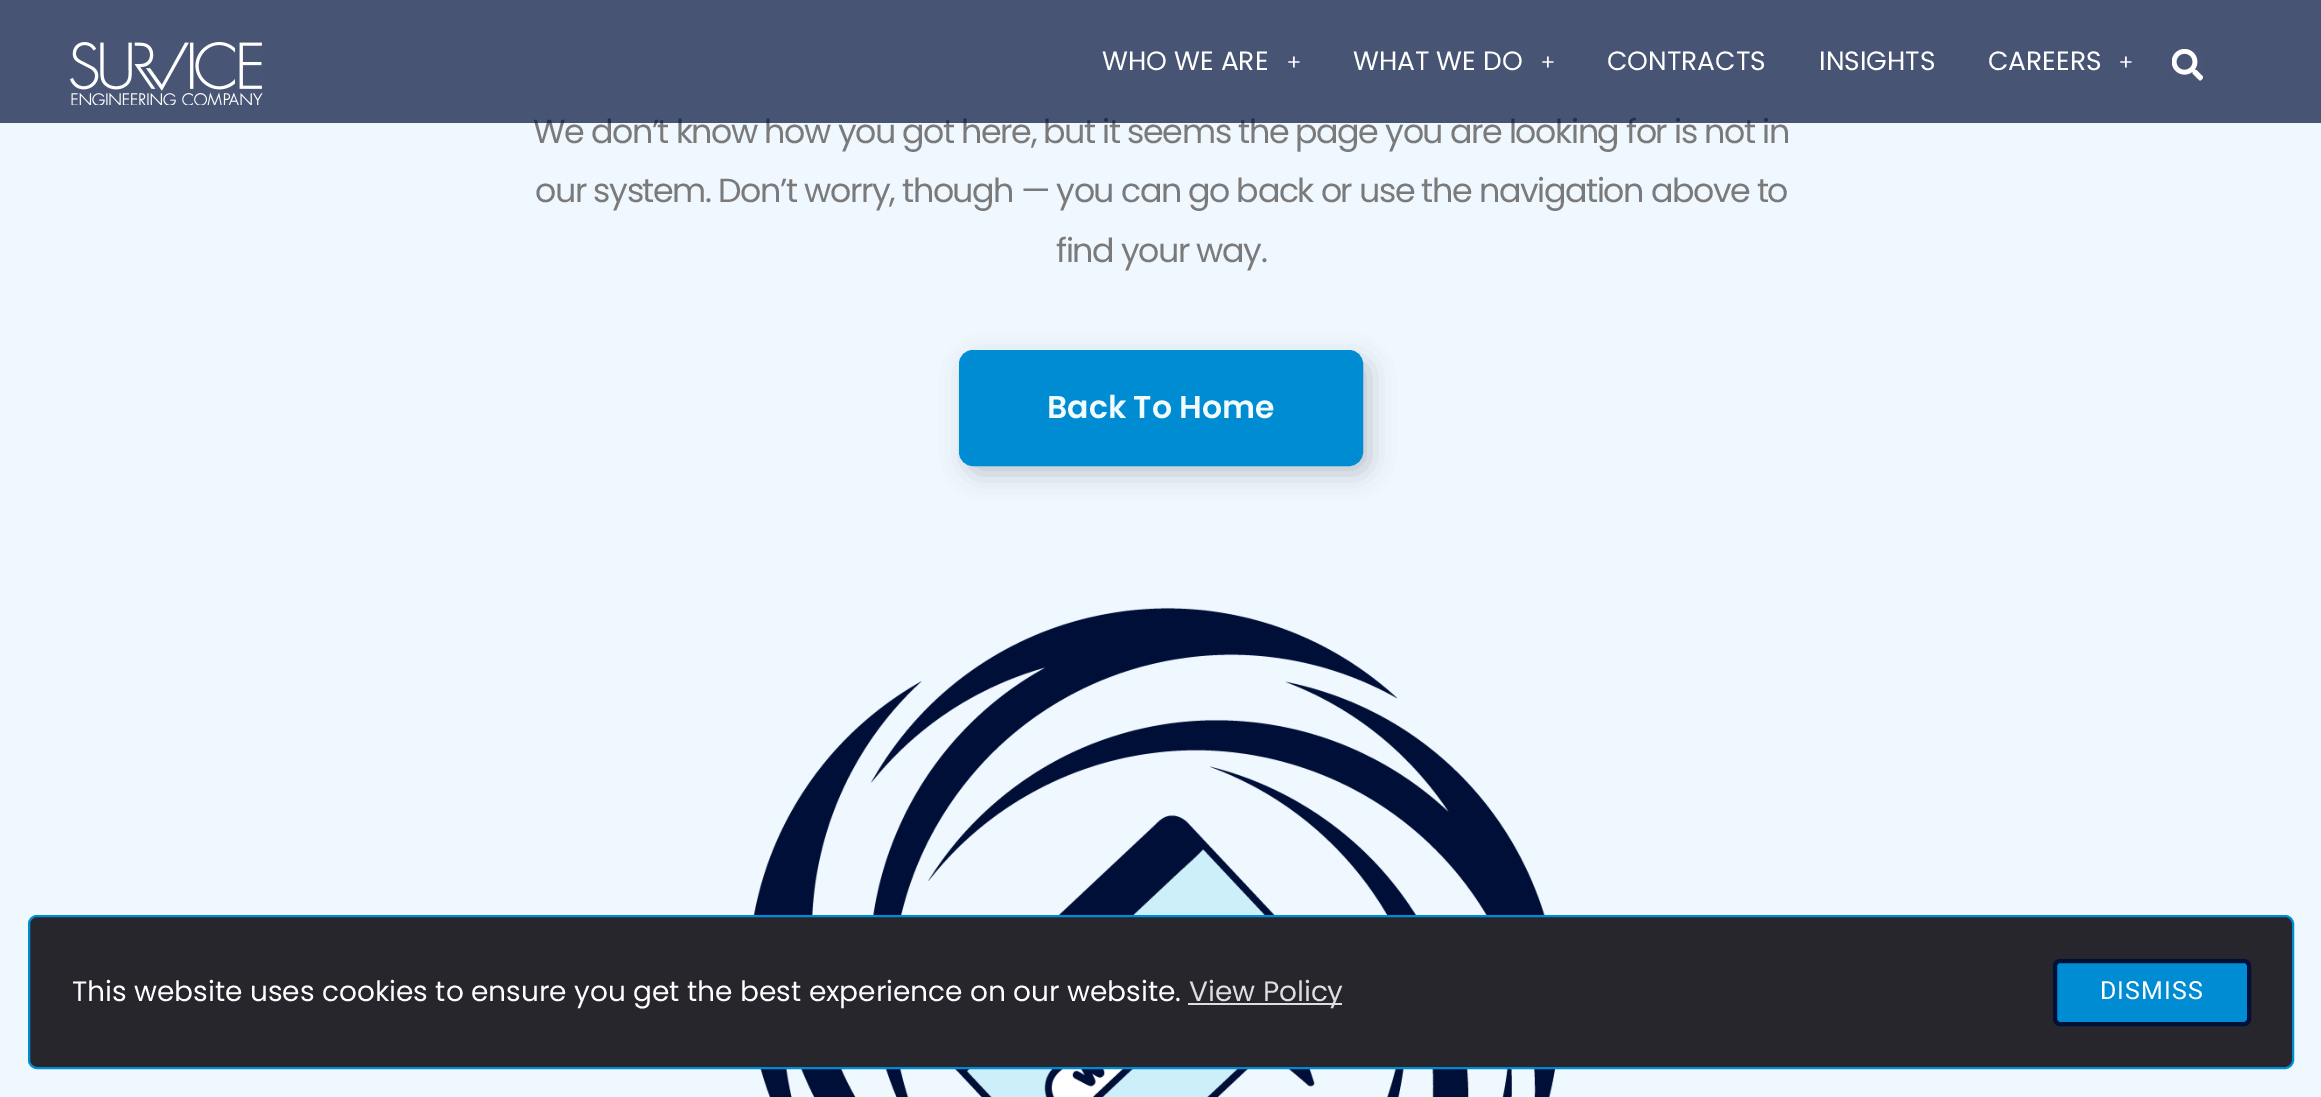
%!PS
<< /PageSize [2321 1097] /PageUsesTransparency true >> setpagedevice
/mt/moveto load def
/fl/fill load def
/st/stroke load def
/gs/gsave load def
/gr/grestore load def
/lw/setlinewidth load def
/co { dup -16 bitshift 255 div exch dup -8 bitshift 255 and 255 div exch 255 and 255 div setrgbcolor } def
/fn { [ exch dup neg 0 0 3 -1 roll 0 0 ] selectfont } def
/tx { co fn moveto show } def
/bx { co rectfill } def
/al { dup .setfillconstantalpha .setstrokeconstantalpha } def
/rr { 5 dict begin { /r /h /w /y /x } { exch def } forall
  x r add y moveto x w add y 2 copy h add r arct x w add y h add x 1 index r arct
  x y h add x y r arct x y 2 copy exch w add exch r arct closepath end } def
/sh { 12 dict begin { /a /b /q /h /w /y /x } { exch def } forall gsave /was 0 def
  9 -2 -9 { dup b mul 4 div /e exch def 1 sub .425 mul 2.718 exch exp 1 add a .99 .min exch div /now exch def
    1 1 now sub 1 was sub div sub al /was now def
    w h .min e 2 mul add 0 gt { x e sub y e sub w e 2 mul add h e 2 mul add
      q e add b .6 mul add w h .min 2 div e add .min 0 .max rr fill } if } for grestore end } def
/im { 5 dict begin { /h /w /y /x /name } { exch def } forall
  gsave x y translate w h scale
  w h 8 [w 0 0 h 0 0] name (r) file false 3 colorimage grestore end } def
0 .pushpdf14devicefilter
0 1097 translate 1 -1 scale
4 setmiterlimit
0 0 2321 1097 16#F0F8FF bx
16#000000 co
966 359 404 115 14 12 .2 sh
16#008CD2 co
960 351 402 114 13 rr gs fl gr
2 lw
st
(media/3.raw) 753 607 802 490 im
16#26262C co
29 916 2264 152 8 rr gs fl gr
16#008CD2 co
st
1188 1003 154 2 16#DEDEDF bx
16#008CD2 co
2055 961 194 63 5 rr gs fl gr
16#000F38 co
4 lw
st
/Poppins-Regular 33.25 fn
16#7A7A7A co
533 143 mt -1.4 0 (We don’t know how you got here, but it seems the page you are looking for is not in) ashow
0.7 al
0 0 2321 123 16#000F38 bx
1 al
(media/2.raw) 2172 49 31 32 im
(+) 2119 70 /LiberationSerif-Bold 24 16#FFFFFF tx
(CAREERS) 1988 70 /Poppins-Regular 26.5 16#FFFFFF tx
(INSIGHTS) 1819 70 /Poppins-Regular 26.5 16#FFFFFF tx
(CONTRACTS) 1607 70 /Poppins-Regular 26.5 16#FFFFFF tx
(+) 1541 70 /LiberationSerif-Bold 24 16#FFFFFF tx
(WHAT WE DO) 1353 70 /Poppins-Regular 26.5 16#FFFFFF tx
(+) 1287 70 /LiberationSerif-Bold 24 16#FFFFFF tx
(WHO WE ARE) 1102 70 /Poppins-Regular 26.5 16#FFFFFF tx
(media/1.raw) 70 42 193 63 im
/Poppins-Regular 33.25 fn
16#7A7A7A co
535 202 mt -1.4 0 (our system. Don’t worry, though — you can go back or use the navigation above to) ashow
1056 262 mt -1.4 0 (find your way.) ashow
(Back To Home) 1047 418 /Poppins-SemiBold 31.5 16#F2FCFE tx
(This website uses cookies to ensure you get the best experience on our website.) 72 1001 /Poppins-Regular 28 16#FFFFFF tx
(View Policy) 1189 1001 /Poppins-Regular 28 16#DEDEDF tx
/Heebo-Regular 25 fn
16#FFFFFF co
2100 999 mt 1 0 (DISMISS) ashow
.poppdf14devicefilter showpage
